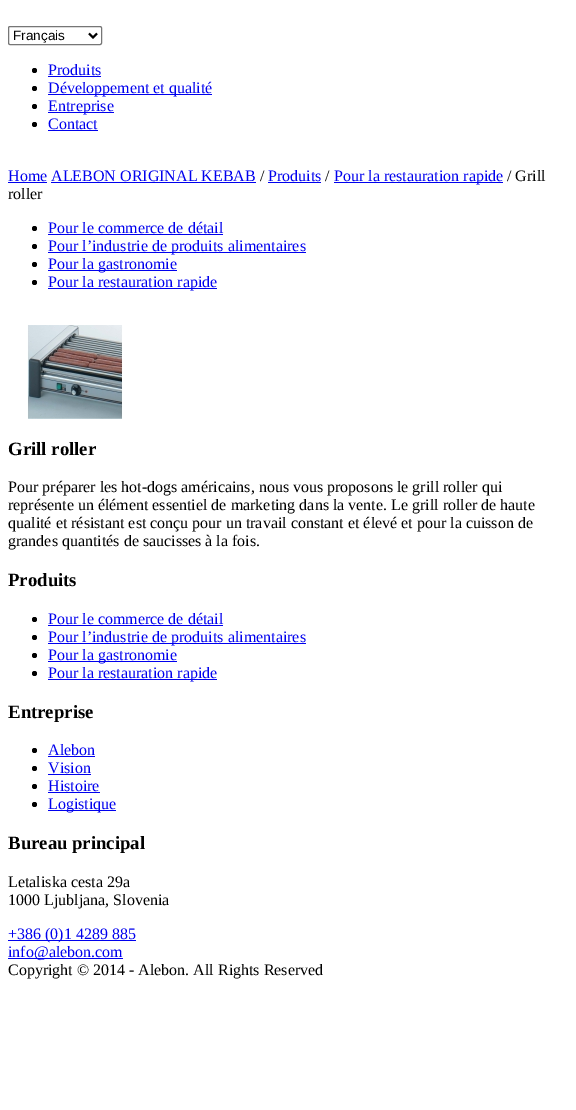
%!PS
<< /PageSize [576 1110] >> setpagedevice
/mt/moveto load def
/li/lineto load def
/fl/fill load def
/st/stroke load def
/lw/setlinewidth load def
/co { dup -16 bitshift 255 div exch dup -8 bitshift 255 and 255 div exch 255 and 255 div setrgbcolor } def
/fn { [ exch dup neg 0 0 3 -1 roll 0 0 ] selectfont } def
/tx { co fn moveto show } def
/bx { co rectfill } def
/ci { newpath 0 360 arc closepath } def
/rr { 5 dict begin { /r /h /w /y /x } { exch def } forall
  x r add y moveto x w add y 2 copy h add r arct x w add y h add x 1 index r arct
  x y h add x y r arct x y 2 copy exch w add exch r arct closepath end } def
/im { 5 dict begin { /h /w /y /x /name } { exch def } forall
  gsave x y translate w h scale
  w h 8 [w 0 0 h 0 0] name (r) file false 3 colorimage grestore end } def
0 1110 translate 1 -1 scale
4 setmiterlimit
0 0 576 1110 16#FFFFFF bx
16#767676 co
8.5 26.5 93 18 1.5 rr st
16#000000 co
2 lw
89 33.5 mt 93 37.5 li 97 33.5 li st
34.5 70.5 2.5 ci fl
48 76 53 1 16#0000EE bx
16#000000 co
34.5 88.5 2.5 ci fl
48 94 164 1 16#0000EE bx
16#000000 co
34.5 106.5 2.5 ci fl
48 112 66 1 16#0000EE bx
16#000000 co
34.5 124.5 2.5 ci fl
48 130 50 1 16#0000EE bx
8 182 39 1 16#0000EE bx
268 182 53 1 16#0000EE bx
334 182 169 1 16#0000EE bx
51 182 205 1 16#0000EE bx
16#000000 co
34.5 228.5 2.5 ci fl
48 234 175 1 16#0000EE bx
16#000000 co
34.5 246.5 2.5 ci fl
48 252 258 1 16#0000EE bx
16#000000 co
34.5 264.5 2.5 ci fl
48 270 129 1 16#0000EE bx
16#000000 co
34.5 282.5 2.5 ci fl
48 288 169 1 16#0000EE bx
(media/1.raw) 27 325 96 94 im
16#000000 co
34.5 619.5 2.5 ci fl
48 625 175 1 16#0000EE bx
16#000000 co
34.5 637.5 2.5 ci fl
48 643 258 1 16#0000EE bx
16#000000 co
34.5 655.5 2.5 ci fl
48 661 129 1 16#0000EE bx
16#000000 co
34.5 673.5 2.5 ci fl
48 679 169 1 16#0000EE bx
16#000000 co
34.5 750.5 2.5 ci fl
48 756 47 1 16#0000EE bx
16#000000 co
34.5 768.5 2.5 ci fl
48 774 43 1 16#0000EE bx
16#000000 co
34.5 786.5 2.5 ci fl
48 792 52 1 16#0000EE bx
16#000000 co
34.5 804.5 2.5 ci fl
48 810 68 1 16#0000EE bx
8 940 128 1 16#0000EE bx
8 958 115 1 16#0000EE bx
(Français) 13 40 /LiberationSans-Regular 13.5 16#000000 tx
(Produits) 48 75 /LiberationSerif-Regular 16 16#0000EE tx
(Développement et qualité) 48 93 /LiberationSerif-Regular 16 16#0000EE tx
(Entreprise) 48 111 /LiberationSerif-Regular 16 16#0000EE tx
(Contact) 48 129 /LiberationSerif-Regular 16 16#0000EE tx
(Home ALEBON ORIGINAL KEBAB) 8 181 /LiberationSerif-Regular 16 16#0000EE tx
(/) 260 181 /LiberationSerif-Regular 16 16#000000 tx
(Produits) 268 181 /LiberationSerif-Regular 16 16#0000EE tx
(/) 325 181 /LiberationSerif-Regular 16 16#000000 tx
(Pour la restauration rapide) 334 181 /LiberationSerif-Regular 16 16#0000EE tx
(/ Grill) 507 181 /LiberationSerif-Regular 16 16#000000 tx
(roller) 8 199 /LiberationSerif-Regular 16 16#000000 tx
(Pour le commerce de détail) 48 233 /LiberationSerif-Regular 16 16#0000EE tx
(Pour l’industrie de produits alimentaires) 48 251 /LiberationSerif-Regular 16 16#0000EE tx
(Pour la gastronomie) 48 269 /LiberationSerif-Regular 16 16#0000EE tx
(Pour la restauration rapide) 48 287 /LiberationSerif-Regular 16 16#0000EE tx
(Grill roller) 8 455 /LiberationSerif-Bold 18.75 16#000000 tx
(Pour préparer les hot-dogs américains, nous vous proposons le grill roller qui) 8 492 /LiberationSerif-Regular 16 16#000000 tx
(représente un élément essentiel de marketing dans la vente. Le grill roller de haute) 8 510 /LiberationSerif-Regular 16 16#000000 tx
(qualité et résistant est conçu pour un travail constant et élevé et pour la cuisson de) 8 528 /LiberationSerif-Regular 16 16#000000 tx
(grandes quantités de saucisses à la fois.) 8 546 /LiberationSerif-Regular 16 16#000000 tx
(Produits) 8 586 /LiberationSerif-Bold 18.75 16#000000 tx
(Pour le commerce de détail) 48 624 /LiberationSerif-Regular 16 16#0000EE tx
(Pour l’industrie de produits alimentaires) 48 642 /LiberationSerif-Regular 16 16#0000EE tx
(Pour la gastronomie) 48 660 /LiberationSerif-Regular 16 16#0000EE tx
(Pour la restauration rapide) 48 678 /LiberationSerif-Regular 16 16#0000EE tx
(Entreprise) 8 718 /LiberationSerif-Bold 18.75 16#000000 tx
(Alebon) 48 755 /LiberationSerif-Regular 16 16#0000EE tx
(Vision) 48 773 /LiberationSerif-Regular 16 16#0000EE tx
(Histoire) 48 791 /LiberationSerif-Regular 16 16#0000EE tx
(Logistique) 48 809 /LiberationSerif-Regular 16 16#0000EE tx
(Bureau principal) 8 849 /LiberationSerif-Bold 18.75 16#000000 tx
(Letaliska cesta 29a) 8 887 /LiberationSerif-Regular 16 16#000000 tx
(1000 Ljubljana, Slovenia) 8 905 /LiberationSerif-Regular 16 16#000000 tx
(+386 \(0\)1 4289 885) 8 939 /LiberationSerif-Regular 16 16#0000EE tx
(info@alebon.com) 8 957 /LiberationSerif-Regular 16 16#0000EE tx
(Copyright © 2014 - Alebon. All Rights Reserved) 8 975 /LiberationSerif-Regular 16 16#000000 tx
showpage
